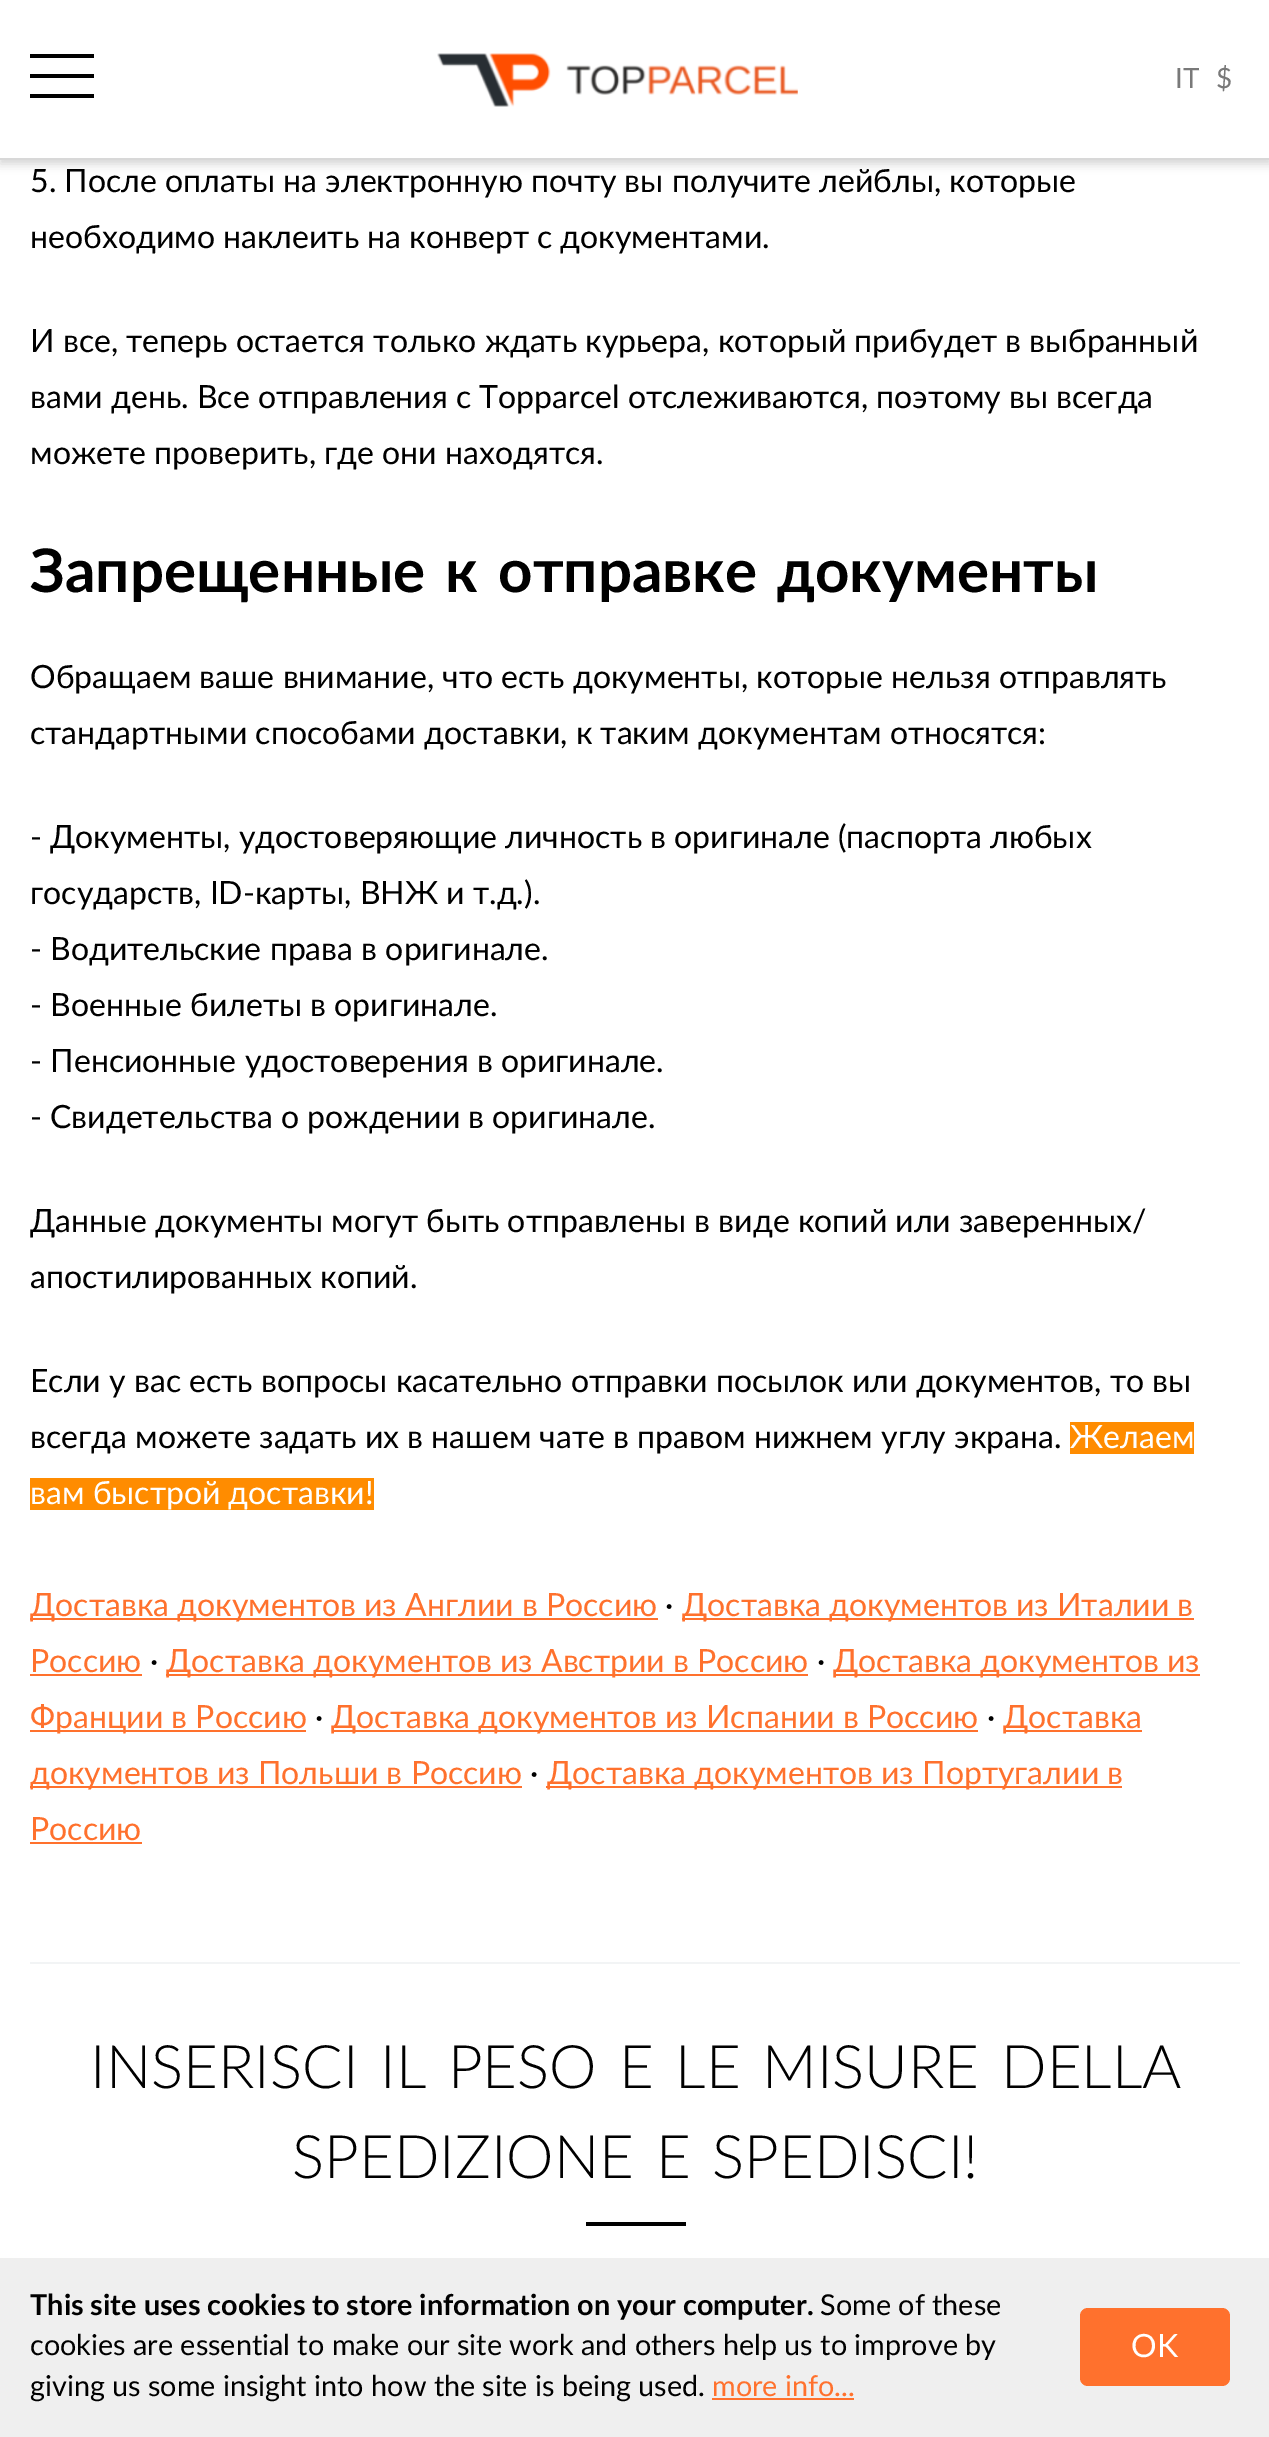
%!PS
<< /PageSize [1269 2437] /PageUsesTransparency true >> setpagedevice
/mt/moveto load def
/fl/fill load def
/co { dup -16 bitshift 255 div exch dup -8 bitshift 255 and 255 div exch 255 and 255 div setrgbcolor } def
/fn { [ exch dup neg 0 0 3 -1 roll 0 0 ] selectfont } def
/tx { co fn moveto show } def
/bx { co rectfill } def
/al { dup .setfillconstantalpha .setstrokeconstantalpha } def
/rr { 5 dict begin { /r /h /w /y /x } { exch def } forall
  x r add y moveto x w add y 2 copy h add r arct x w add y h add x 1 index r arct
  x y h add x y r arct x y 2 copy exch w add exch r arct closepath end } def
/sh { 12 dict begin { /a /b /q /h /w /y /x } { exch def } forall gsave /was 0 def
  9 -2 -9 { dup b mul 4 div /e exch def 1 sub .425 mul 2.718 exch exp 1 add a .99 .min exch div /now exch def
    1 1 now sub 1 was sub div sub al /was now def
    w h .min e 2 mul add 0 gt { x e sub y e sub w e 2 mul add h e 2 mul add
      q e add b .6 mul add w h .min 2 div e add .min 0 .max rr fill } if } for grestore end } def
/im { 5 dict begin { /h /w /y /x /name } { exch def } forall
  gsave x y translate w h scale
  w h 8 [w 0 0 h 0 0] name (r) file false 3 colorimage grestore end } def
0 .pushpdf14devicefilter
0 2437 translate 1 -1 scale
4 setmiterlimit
0 0 1269 2437 16#FFFFFF bx
16#000000 co
0 4 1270 160 0 5 .17 sh
0 0 1269 158 16#FFFFFF bx
0 158 1269 2 16#D8D8D8 bx
30 74 64 4 16#000000 bx
30 54 64 4 16#000000 bx
30 94 64 4 16#000000 bx
(media/1.raw) 437 53 361 54 im
1070 1422 124 32 16#FF8C00 bx
30 1478 344 32 16#FF8C00 bx
30 1618 628 2 16#FF712D bx
682 1618 512 2 16#FF712D bx
30 1674 112 2 16#FF712D bx
166 1674 642 2 16#FF712D bx
834 1674 366 2 16#FF712D bx
30 1730 276 2 16#FF712D bx
332 1730 646 2 16#FF712D bx
1004 1730 138 2 16#FF712D bx
30 1786 492 2 16#FF712D bx
546 1786 576 2 16#FF712D bx
30 1842 112 2 16#FF712D bx
30 1962 1210 2 16#F2F4F5 bx
586 2222 100 4 16#000000 bx
0 2258 1269 179 16#EFEFEF bx
712 2398 142 2 16#FF712D bx
1080 2308 150 78 8 rr fl
(IT) 1175 88 /Lato-Regular 28 16#797979 tx
($) 1216 88 /Lato-Regular 28 16#797979 tx
(5. После оплаты на электронную почту вы получите лейблы, которые) 30 192 /Lato-Regular 32 16#000000 tx
(необходимо наклеить на конверт с документами.) 30 248 /Lato-Regular 32 16#000000 tx
(И все, теперь остается только ждать курьера, который прибудет в выбранный) 30 352 /Lato-Regular 32 16#000000 tx
(вами день. Все отправления с Topparcel отслеживаются, поэтому вы всегда) 30 408 /Lato-Regular 32 16#000000 tx
(можете проверить, где они находятся.) 30 464 /Lato-Regular 32 16#000000 tx
/Lato-Bold 60 fn
30 592 mt 5.5 0 32 (Запрещенные к отправке документы) widthshow
(Обращаем ваше внимание, что есть документы, которые нельзя отправлять) 30 688 /Lato-Regular 32 16#000000 tx
(стандартными способами доставки, к таким документам относятся:) 30 744 /Lato-Regular 32 16#000000 tx
(- Документы, удостоверяющие личность в оригинале \(паспорта любых) 30 848 /Lato-Regular 32 16#000000 tx
(государств, ID-карты, ВНЖ и т.д.\).) 30 904 /Lato-Regular 32 16#000000 tx
(- Водительские права в оригинале.) 30 960 /Lato-Regular 32 16#000000 tx
(- Военные билеты в оригинале.) 30 1016 /Lato-Regular 32 16#000000 tx
(- Пенсионные удостоверения в оригинале.) 30 1072 /Lato-Regular 32 16#000000 tx
(- Свидетельства о рождении в оригинале.) 30 1128 /Lato-Regular 32 16#000000 tx
(Данные документы могут быть отправлены в виде копий или заверенных/) 30 1232 /Lato-Regular 32 16#000000 tx
(апостилированных копий.) 30 1288 /Lato-Regular 32 16#000000 tx
(Если у вас есть вопросы касательно отправки посылок или документов, то вы) 30 1392 /Lato-Regular 32 16#000000 tx
(всегда можете задать их в нашем чате в правом нижнем углу экрана.) 30 1448 /Lato-Regular 32 16#000000 tx
(Желаем) 1070 1448 /Lato-Regular 32 16#FFFFFF tx
(вам быстрой доставки!) 30 1504 /Lato-Regular 32 16#FFFFFF tx
(Доставка документов из Англии в Россию) 30 1616 /Lato-Regular 32 16#FF712D tx
(·) 665 1616 /Lato-Regular 32 16#000000 tx
(Доставка документов из Италии в) 682 1616 /Lato-Regular 32 16#FF712D tx
(Россию) 30 1672 /Lato-Regular 32 16#FF712D tx
(·) 150 1672 /Lato-Regular 32 16#000000 tx
(Доставка документов из Австрии в Россию) 166 1672 /Lato-Regular 32 16#FF712D tx
(·) 817 1672 /Lato-Regular 32 16#000000 tx
(Доставка документов из) 833 1672 /Lato-Regular 32 16#FF712D tx
(Франции в Россию) 30 1728 /Lato-Regular 32 16#FF712D tx
(·) 315 1728 /Lato-Regular 32 16#000000 tx
(Доставка документов из Испании в Россию) 331 1728 /Lato-Regular 32 16#FF712D tx
(·) 987 1728 /Lato-Regular 32 16#000000 tx
(Доставка) 1003 1728 /Lato-Regular 32 16#FF712D tx
(документов из Польши в Россию) 30 1784 /Lato-Regular 32 16#FF712D tx
(·) 530 1784 /Lato-Regular 32 16#000000 tx
(Доставка документов из Португалии в) 547 1784 /Lato-Regular 32 16#FF712D tx
(Россию) 30 1840 /Lato-Regular 32 16#FF712D tx
/Lato-Light 60 fn
16#000000 co
90 2088 mt 5.5 0 32 (INSERISCI IL PESO E LE MISURE DELLA) widthshow
292 2178 mt 5.5 0 32 (SPEDIZIONE E SPEDISCI!) widthshow
(This site uses cookies to store information on your computer.) 30 2315 /Lato-Bold 28.8 16#000000 tx
(Some of these) 820 2315 /Lato-Regular 28.8 16#000000 tx
(cookies are essential to make our site work and others help us to improve by) 30 2355 /Lato-Regular 28.8 16#000000 tx
(giving us some insight into how the site is being used.) 30 2396 /Lato-Regular 28.8 16#000000 tx
(more info...) 712 2396 /Lato-Regular 28.8 16#FF712D tx
(OK) 1131 2357 /Lato-Regular 32 16#FFFFFF tx
.poppdf14devicefilter showpage
